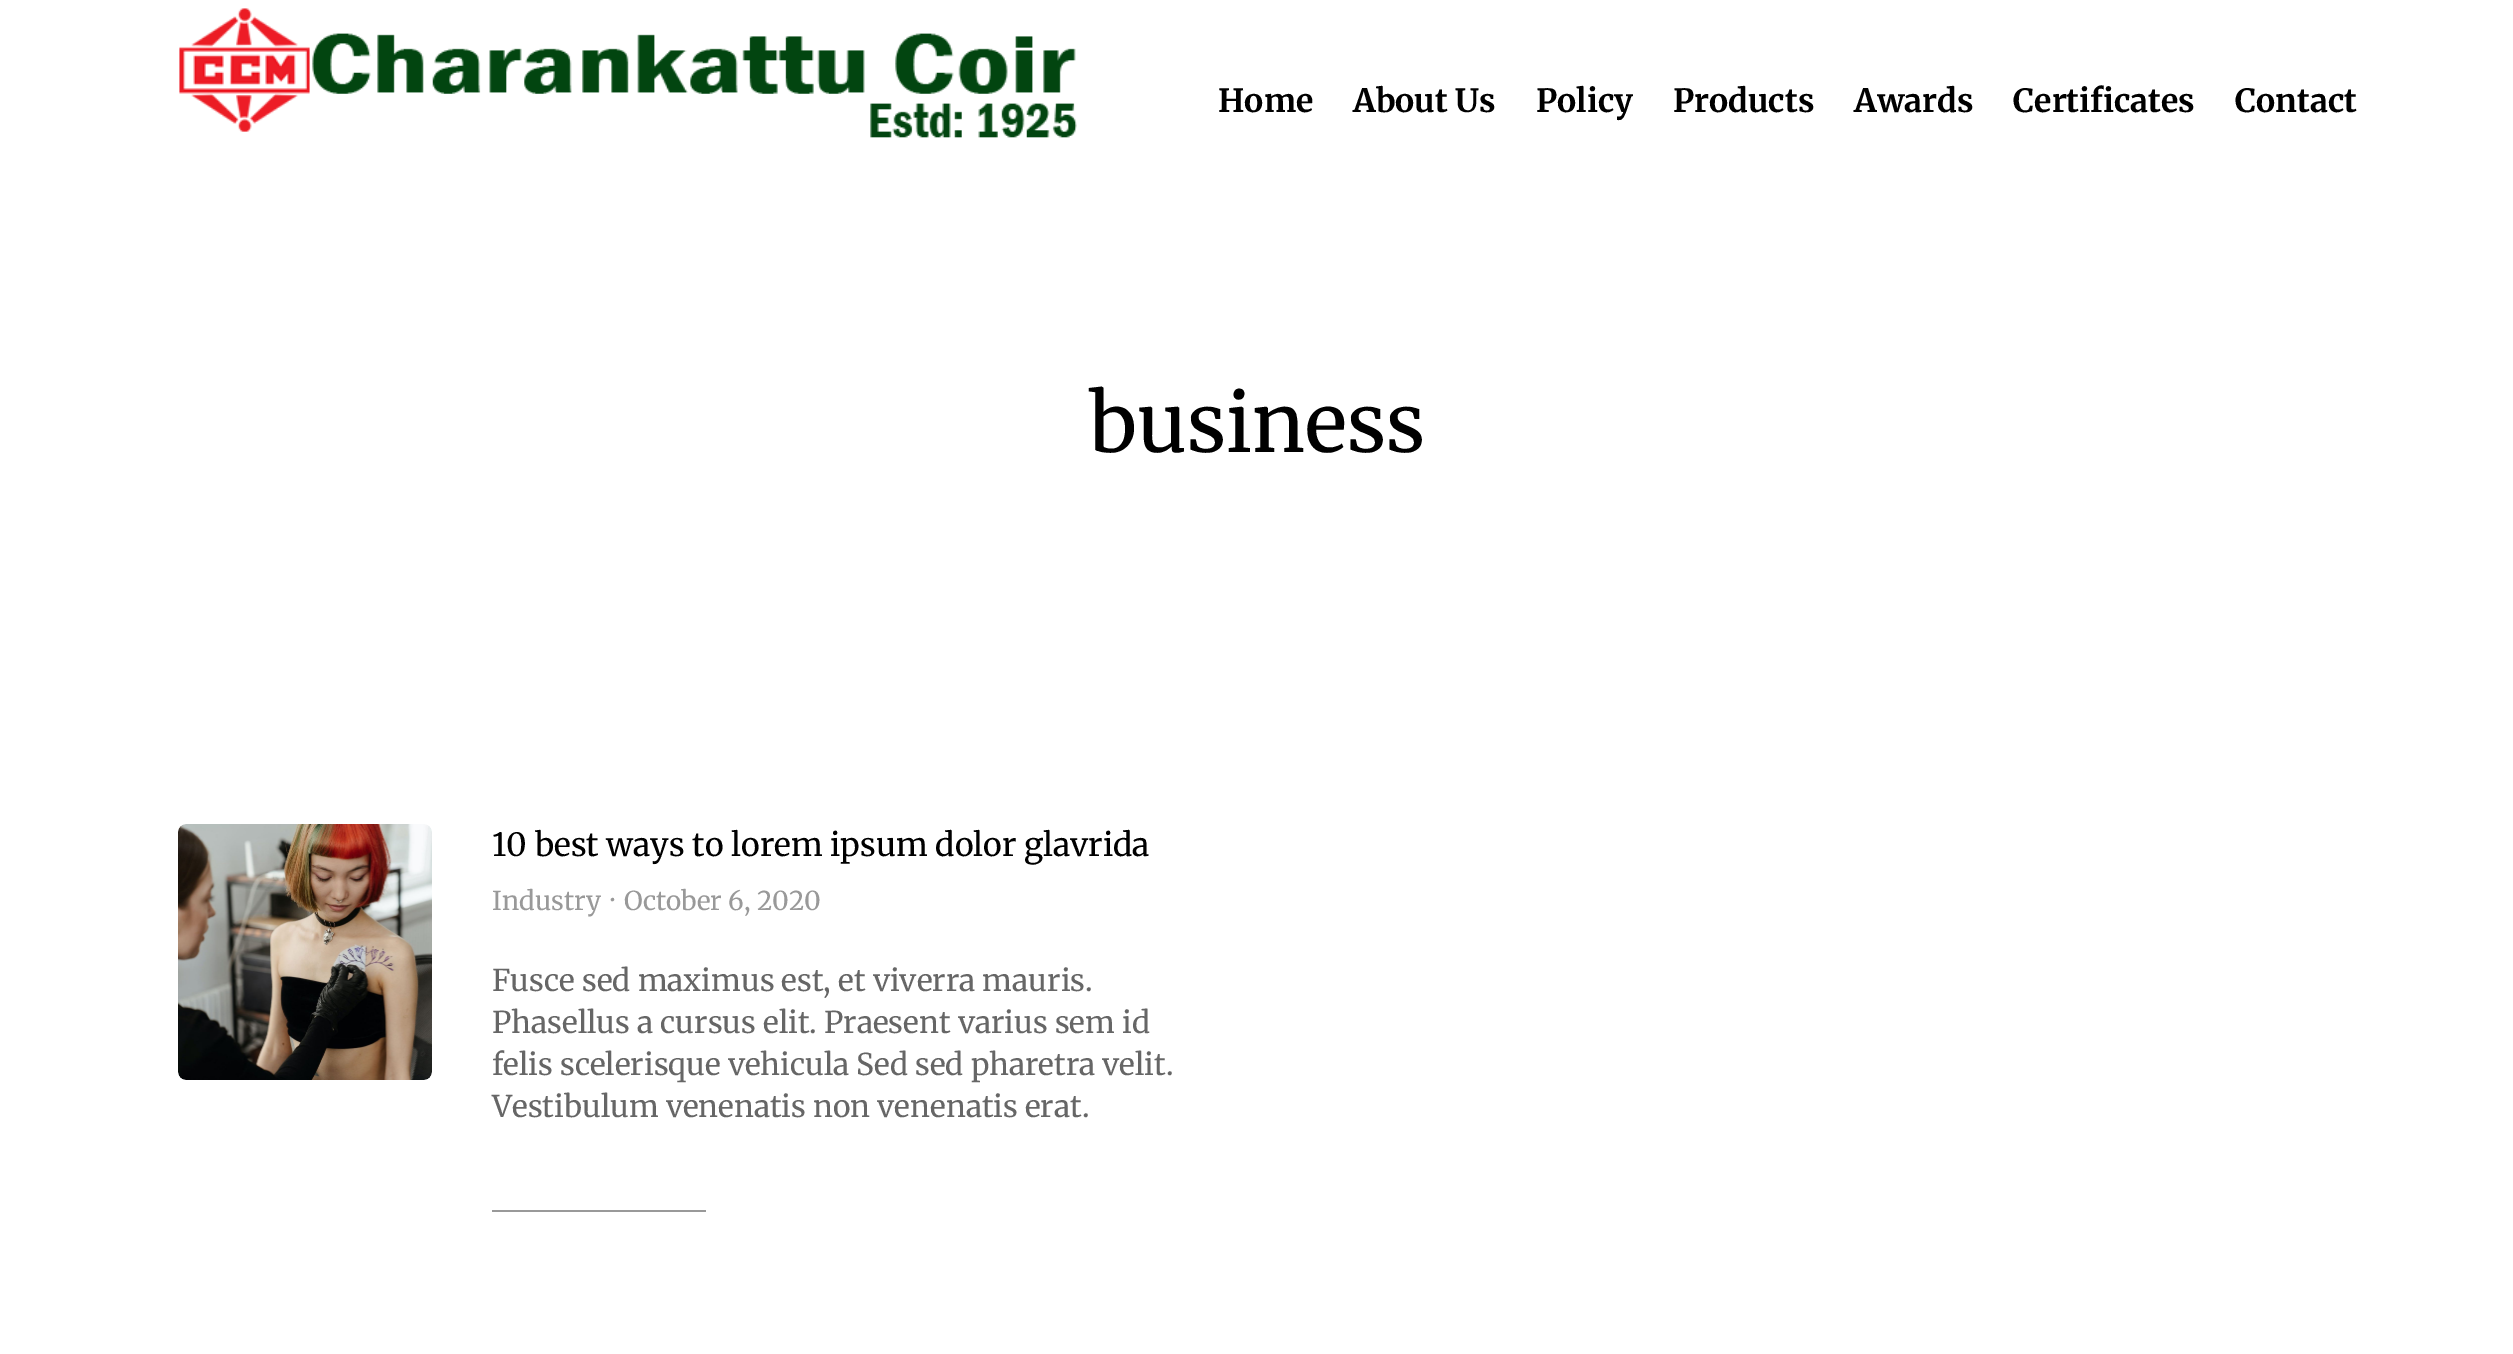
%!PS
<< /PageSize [2513 1354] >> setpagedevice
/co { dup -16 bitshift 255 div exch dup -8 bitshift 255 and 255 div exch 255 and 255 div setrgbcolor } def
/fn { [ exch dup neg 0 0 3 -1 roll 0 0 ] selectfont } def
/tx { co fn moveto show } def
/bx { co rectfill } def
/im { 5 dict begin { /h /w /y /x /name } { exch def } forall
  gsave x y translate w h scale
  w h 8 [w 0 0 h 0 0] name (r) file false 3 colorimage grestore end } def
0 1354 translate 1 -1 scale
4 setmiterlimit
0 0 2513 1354 16#FFFFFF bx
(media/1.raw) 179 8 898 130 im
(media/2.raw) 178 824 254 256 im
492 1210 214 2 16#999999 bx
(Home) 1218 112 /Merriweather-Bold 32 16#000000 tx
(About Us) 1353 112 /Merriweather-Bold 32 16#000000 tx
(Policy) 1536 112 /Merriweather-Bold 32 16#000000 tx
(Products) 1673 112 /Merriweather-Bold 32 16#000000 tx
(Awards) 1854 112 /Merriweather-Bold 32 16#000000 tx
(Certificates) 2013 112 /Merriweather-Bold 32 16#000000 tx
(Contact) 2235 112 /Merriweather-Bold 32 16#000000 tx
(business) 1089 452 /Merriweather-Regular 80 16#000000 tx
(10 best ways to lorem ipsum dolor glavrida) 492 856 /Merriweather-Regular 32 16#000000 tx
(Industry) 492 910 /Merriweather-Regular 26 16#999999 tx
(·) 611 910 /Merriweather-Regular 26 16#999999 tx
(October 6, 2020) 624 910 /Merriweather-Regular 26 16#999999 tx
(Fusce sed maximus est, et viverra mauris.) 492 991 /Merriweather-Regular 30 16#666666 tx
(Phasellus a cursus elit. Praesent varius sem id) 492 1033 /Merriweather-Regular 30 16#666666 tx
(felis scelerisque vehicula Sed sed pharetra velit.) 492 1075 /Merriweather-Regular 30 16#666666 tx
(Vestibulum venenatis non venenatis erat.) 492 1117 /Merriweather-Regular 30 16#666666 tx
showpage
